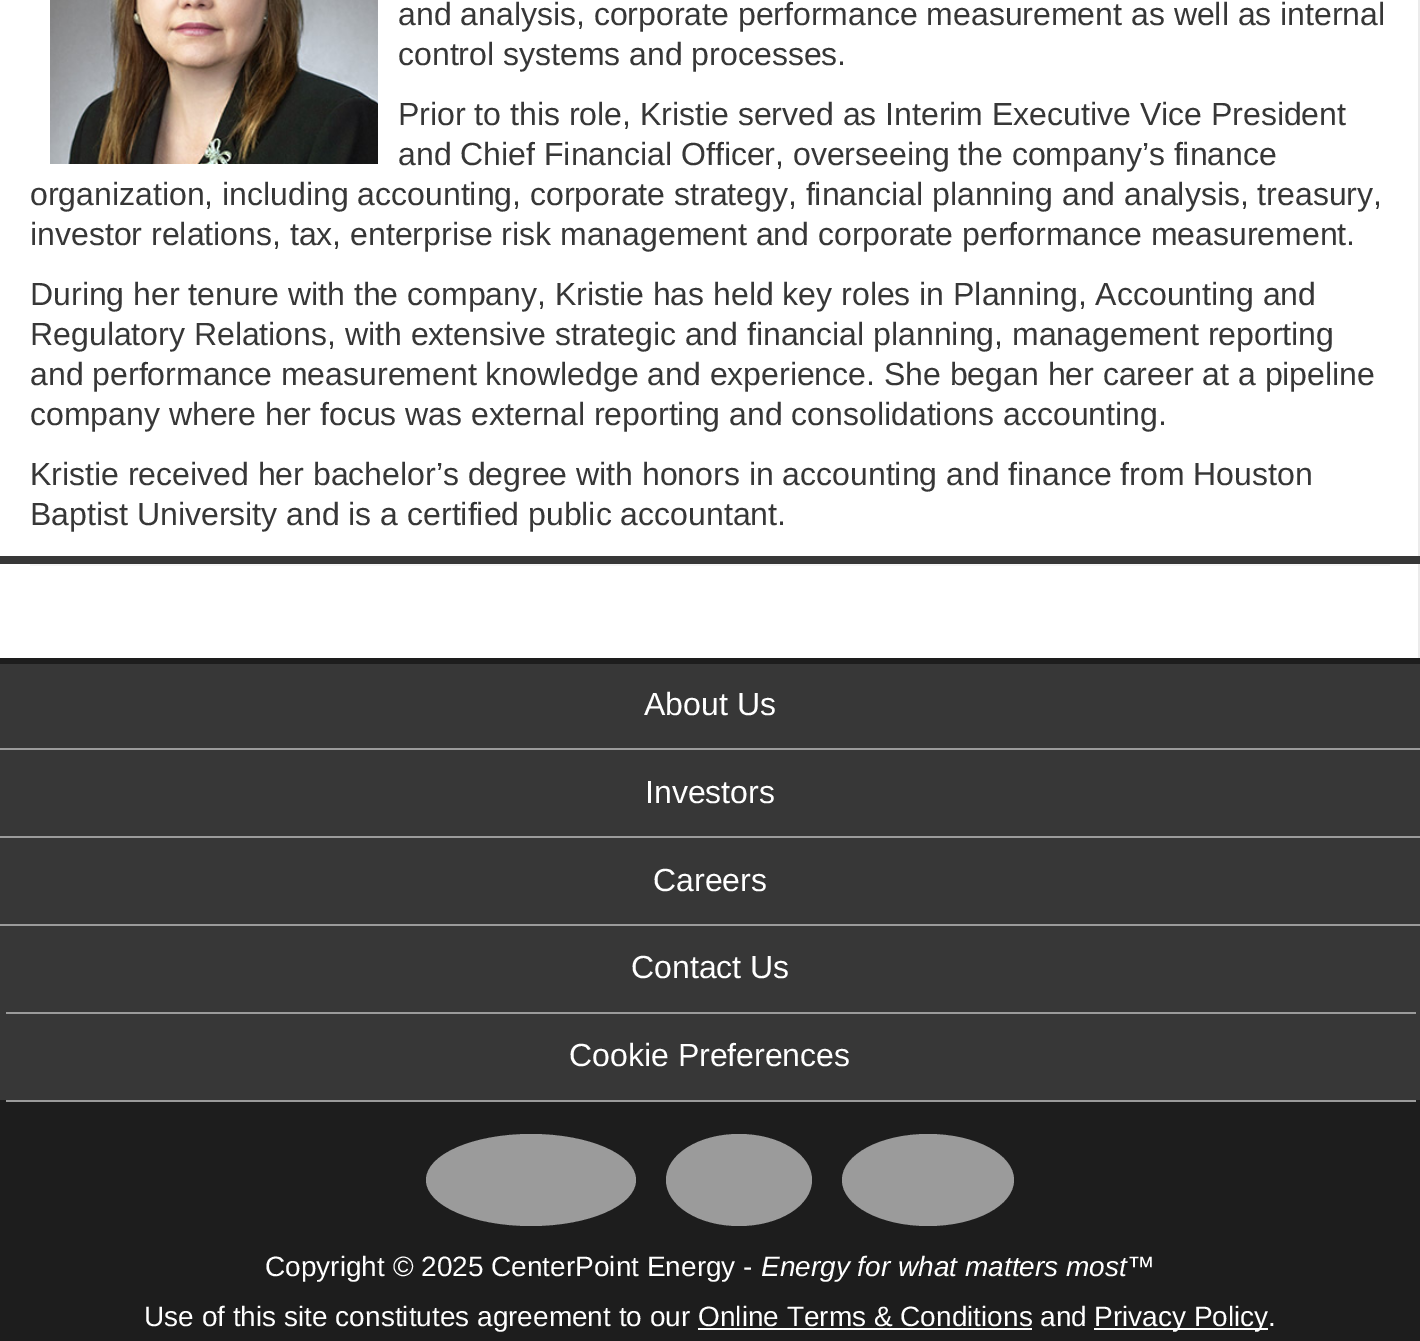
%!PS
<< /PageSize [1420 1341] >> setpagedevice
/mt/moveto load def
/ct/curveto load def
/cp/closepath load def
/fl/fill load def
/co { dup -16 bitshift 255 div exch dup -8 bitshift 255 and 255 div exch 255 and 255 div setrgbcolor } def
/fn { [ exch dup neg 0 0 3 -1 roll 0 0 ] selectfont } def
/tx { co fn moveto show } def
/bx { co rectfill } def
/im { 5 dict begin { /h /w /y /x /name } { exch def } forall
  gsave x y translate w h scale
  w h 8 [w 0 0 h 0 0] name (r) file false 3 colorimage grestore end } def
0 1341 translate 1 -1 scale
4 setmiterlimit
0 0 1420 1341 16#FFFFFF bx
1418 0 2 658 16#EBEBEB bx
(media/1.raw) 50 0 328 164 im
0 556 1420 8 16#373737 bx
30 564 1360 2 16#F5F5F5 bx
0 664 1420 436 16#373737 bx
0 658 1420 6 16#1D1D1D bx
0 748 1420 2 16#9B9B9B bx
0 836 1420 2 16#9B9B9B bx
0 924 1420 2 16#9B9B9B bx
6 1012 1410 2 16#9B9B9B bx
0 1100 1420 241 16#1D1D1D bx
6 1100 1410 2 16#9B9B9B bx
531 1134 mt 589 1134 636 1154.5 636 1180 ct 636 1205.5 589 1226 531 1226 ct 473 1226 426 1205.5 426 1180 ct 426 1154.5 473 1134 531 1134 ct cp fl
739 1134 mt 779.5 1134 812 1154.5 812 1180 ct 812 1205.5 779.5 1226 739 1226 ct 698.5 1226 666 1205.5 666 1180 ct 666 1154.5 698.5 1134 739 1134 ct cp fl
928 1134 mt 975.5 1134 1014 1154.5 1014 1180 ct 1014 1205.5 975.5 1226 928 1226 ct 880.5 1226 842 1205.5 842 1180 ct 842 1154.5 880.5 1134 928 1134 ct cp fl
1094 1328 174 2 16#FFFFFF bx
698 1328 334 2 16#FFFFFF bx
(and analysis, corporate performance measurement as well as internal) 398 25 /LiberationSans-Regular 32 16#373737 tx
(control systems and processes.) 398 65 /LiberationSans-Regular 32 16#373737 tx
(Prior to this role, Kristie served as Interim Executive Vice President) 398 125 /LiberationSans-Regular 32 16#373737 tx
(and Chief Financial Officer, overseeing the company’s finance) 398 165 /LiberationSans-Regular 32 16#373737 tx
(organization, including accounting, corporate strategy, financial planning and analysis, treasury,) 30 205 /LiberationSans-Regular 32 16#373737 tx
(investor relations, tax, enterprise risk management and corporate performance measurement.) 30 245 /LiberationSans-Regular 32 16#373737 tx
(During her tenure with the company, Kristie has held key roles in Planning, Accounting and) 30 305 /LiberationSans-Regular 32 16#373737 tx
(Regulatory Relations, with extensive strategic and financial planning, management reporting) 30 345 /LiberationSans-Regular 32 16#373737 tx
(and performance measurement knowledge and experience. She began her career at a pipeline) 30 385 /LiberationSans-Regular 32 16#373737 tx
(company where her focus was external reporting and consolidations accounting.) 30 425 /LiberationSans-Regular 32 16#373737 tx
(Kristie received her bachelor’s degree with honors in accounting and finance from Houston) 30 485 /LiberationSans-Regular 32 16#373737 tx
(Baptist University and is a certified public accountant.) 30 525 /LiberationSans-Regular 32 16#373737 tx
(About Us) 644 715 /LiberationSans-Regular 32 16#FFFFFF tx
(Investors) 645 803 /LiberationSans-Regular 32 16#FFFFFF tx
(Careers) 653 891 /LiberationSans-Regular 32 16#FFFFFF tx
(Contact Us) 631 978 /LiberationSans-Regular 32 16#FFFFFF tx
(Cookie Preferences) 569 1066 /LiberationSans-Regular 32 16#FFFFFF tx
(Copyright © 2025 CenterPoint Energy -) 265 1276 /LiberationSans-Regular 28 16#FFFFFF tx
(Energy for what matters most™) 761 1276 /LiberationSans-Italic 28 16#FFFFFF tx
(Use of this site constitutes agreement to our Online Terms & Conditions and) 144 1326 /LiberationSans-Regular 28 16#FFFFFF tx
(Privacy Policy.) 1094 1326 /LiberationSans-Regular 28 16#FFFFFF tx
showpage
